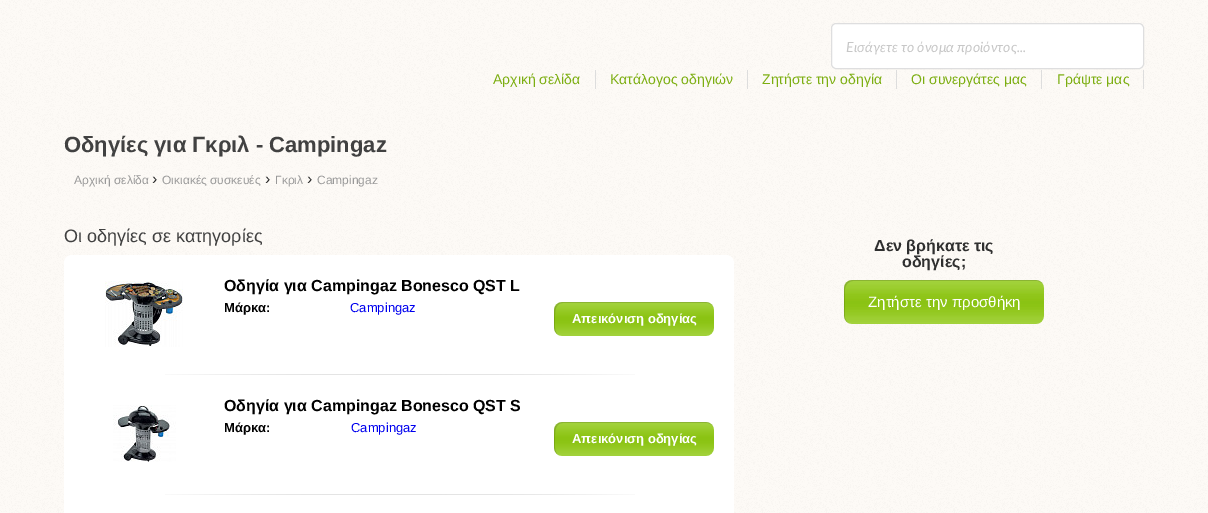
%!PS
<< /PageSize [1208 513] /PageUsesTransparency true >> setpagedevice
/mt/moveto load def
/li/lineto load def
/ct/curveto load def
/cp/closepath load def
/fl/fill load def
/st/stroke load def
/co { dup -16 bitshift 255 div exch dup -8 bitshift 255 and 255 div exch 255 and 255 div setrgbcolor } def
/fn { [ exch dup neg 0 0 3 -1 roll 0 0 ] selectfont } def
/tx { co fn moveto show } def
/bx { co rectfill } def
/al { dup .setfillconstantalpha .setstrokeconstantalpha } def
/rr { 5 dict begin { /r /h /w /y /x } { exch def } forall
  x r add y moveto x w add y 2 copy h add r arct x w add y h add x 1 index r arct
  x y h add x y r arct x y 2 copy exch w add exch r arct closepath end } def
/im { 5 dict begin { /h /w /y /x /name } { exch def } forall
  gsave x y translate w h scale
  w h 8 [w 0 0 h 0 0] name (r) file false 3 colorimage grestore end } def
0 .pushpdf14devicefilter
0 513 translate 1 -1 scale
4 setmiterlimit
0 0 1208 513 16#FFFFFF bx
(media/1.raw) 0 0 1208 513 im
831 23 313 46 5 rr fl
0.15 al
16#222426 co
831.5 23.5 312 45 4.5 rr st
1 al
595 70 1 19 16#DDDDDD bx
747 70 1 19 16#DDDDDD bx
896 70 1 19 16#DDDDDD bx
1041 70 1 19 16#DDDDDD bx
1143 70 1 19 16#DDDDDD bx
16#FFFFFF co
64 255 670 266 8 rr fl
(media/2.raw) 165 374 470 1 im
(media/3.raw) 105 281 78 66 im
(media/4.raw) 554 302 160 34 im
0.14 al
16#000000 co
563 303 mt 707 303 li 709 303 711 304 713 306 ct 711 304 709 302 706 302 ct 562 302 li 558 302 554 306 554 310 ct 554 328 li 554 331 556 333 558 335 ct 554 331 555 325 555 320 ct 555 314 554 303 563 303 ct cp fl
1 al
(media/2.raw) 165 494 470 1 im
(media/5.raw) 113 405 63 57 im
(media/4.raw) 554 422 160 34 im
0.14 al
563 423 mt 707 423 li 709 423 711 424 713 426 ct 711 424 709 422 706 422 ct 562 422 li 558 422 554 426 554 430 ct 554 448 li 554 451 556 453 558 455 ct 554 451 555 445 555 440 ct 555 434 554 423 563 423 ct cp fl
1 al
(media/6.raw) 844 280 200 44 im
0.14 al
853 281 mt 1037 281 li 1039 281 1041 282 1043 284 ct 1041 282 1039 280 1036 280 ct 852 280 li 848 280 844 284 844 288 ct 844 316 li 844 319 846 321 848 323 ct 846 321 845 319 845 317 ct 845 289 li 845 285 849 281 853 281 ct cp fl
1 al
(Εισάγετε το όνομα προϊόντος...) 846 52 /Lato-Italic 14 16#C7C7C7 tx
(Αρχική σελίδα) 493 84 /LiberationSans-Regular 14 16#7CAE11 tx
(Κατάλογος οδηγιών) 610 84 /LiberationSans-Regular 14 16#7CAE11 tx
(Ζητήστε την οδηγία) 762 84 /LiberationSans-Regular 14 16#7CAE11 tx
(Οι συνεργάτες μας) 911 84 /LiberationSans-Regular 14 16#7CAE11 tx
(Γράψτε μας) 1057 84 /LiberationSans-Regular 14 16#7CAE11 tx
(Οδηγίες για Γκριλ - Campingaz) 64 152 /LiberationSans-Bold 22 16#414141 tx
(Αρχική σελίδα) 74 184 /LiberationSans-Regular 12 16#999999 tx
(›) 152 184 /LiberationSans-Regular 16 16#2F2F2F tx
(Οικιακές συσκευές) 162 184 /LiberationSans-Regular 12 16#999999 tx
(›) 265 184 /LiberationSans-Regular 16 16#2F2F2F tx
(Γκριλ) 275 184 /LiberationSans-Regular 12 16#999999 tx
(›) 307 184 /LiberationSans-Regular 16 16#2F2F2F tx
(Campingaz) 317 184 /LiberationSans-Regular 12 16#999999 tx
(Οι οδηγίες σε κατηγορίες) 64 242 /LiberationSans-Regular 18 16#414141 tx
(Οδηγία για Campingaz Bonesco QST L) 224 291 /LiberationSans-Bold 16 16#000000 tx
(Μάρκα:) 224 312 /LiberationSans-Bold 13 16#000000 tx
(Campingaz) 350 312 /LiberationSans-Regular 13 16#0000EE tx
(Απεικόνιση οδηγίας) 572 323 /LiberationSans-Bold 13 16#FFFFFF tx
(Οδηγία για Campingaz Bonesco QST S) 224 411 /LiberationSans-Bold 16 16#000000 tx
(Μάρκα:) 224 432 /LiberationSans-Bold 13 16#000000 tx
(Campingaz) 351 432 /LiberationSans-Regular 13 16#0000EE tx
(Απεικόνιση οδηγίας) 572 443 /LiberationSans-Bold 13 16#FFFFFF tx
(Δεν βρήκατε τις) 874 251 /LiberationSans-Bold 16 16#2F2F2F tx
(οδηγίες;) 902 267 /LiberationSans-Bold 16 16#2F2F2F tx
(Ζητήστε την προσθήκη) 868 307 /LiberationSans-Regular 15 16#FFFFFF tx
.poppdf14devicefilter showpage
